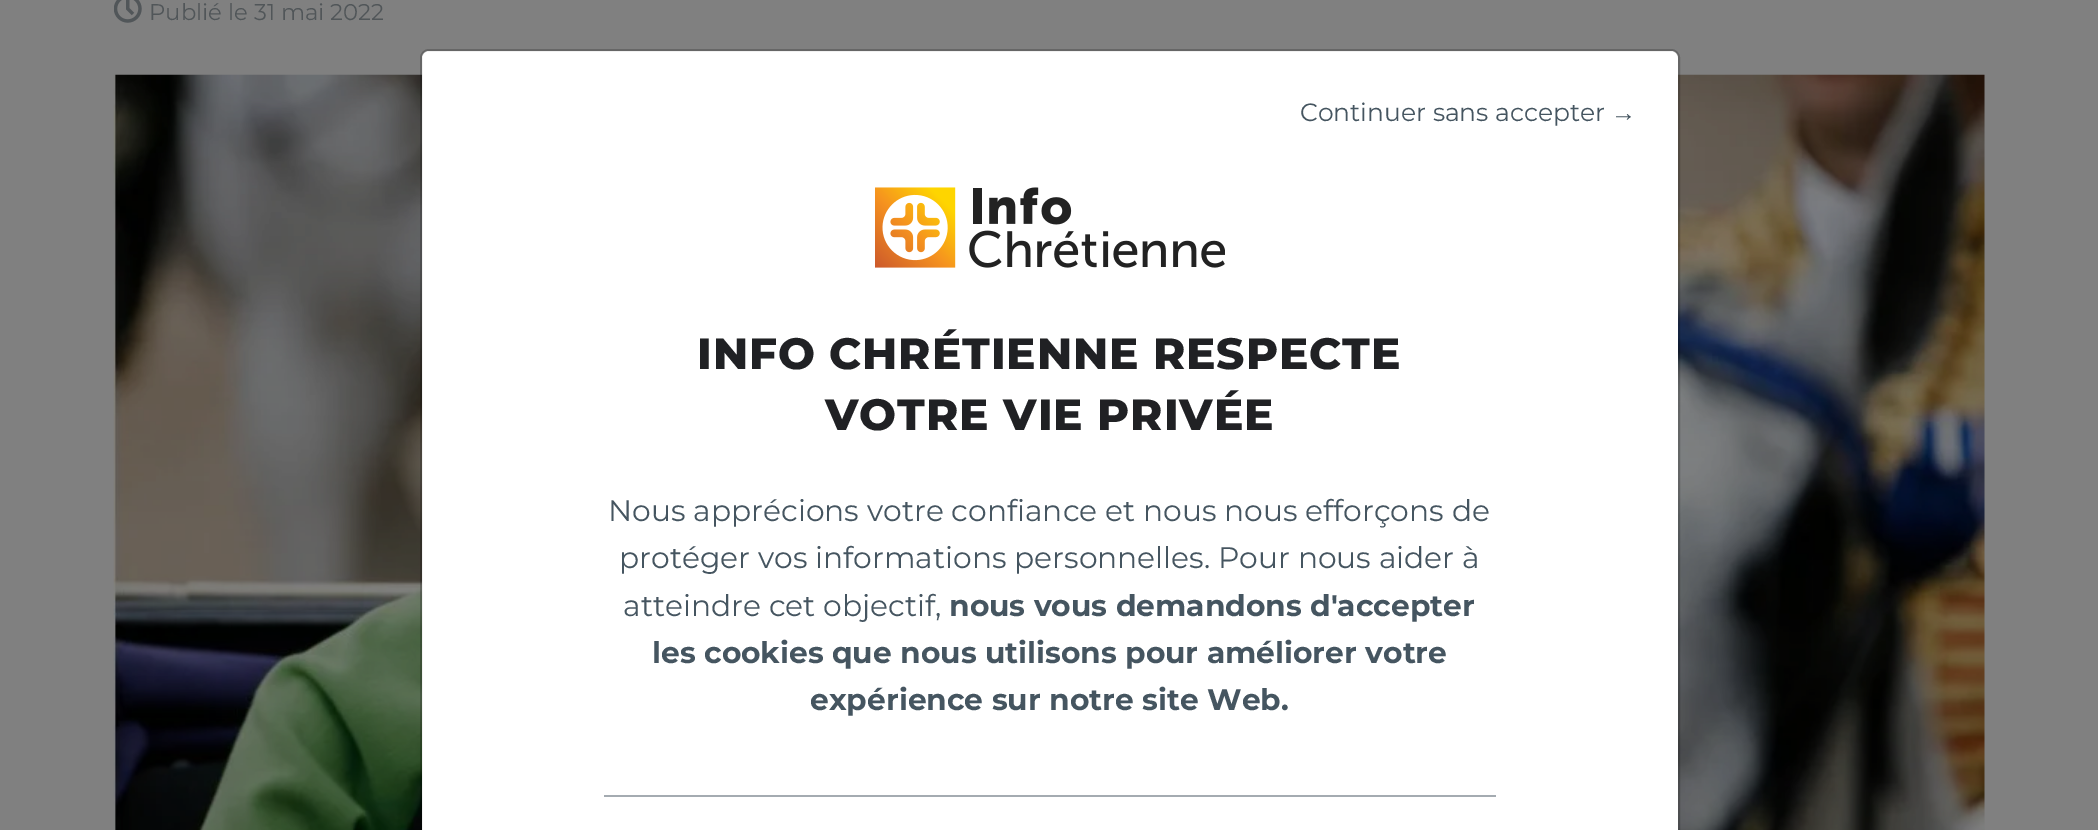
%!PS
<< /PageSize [2098 830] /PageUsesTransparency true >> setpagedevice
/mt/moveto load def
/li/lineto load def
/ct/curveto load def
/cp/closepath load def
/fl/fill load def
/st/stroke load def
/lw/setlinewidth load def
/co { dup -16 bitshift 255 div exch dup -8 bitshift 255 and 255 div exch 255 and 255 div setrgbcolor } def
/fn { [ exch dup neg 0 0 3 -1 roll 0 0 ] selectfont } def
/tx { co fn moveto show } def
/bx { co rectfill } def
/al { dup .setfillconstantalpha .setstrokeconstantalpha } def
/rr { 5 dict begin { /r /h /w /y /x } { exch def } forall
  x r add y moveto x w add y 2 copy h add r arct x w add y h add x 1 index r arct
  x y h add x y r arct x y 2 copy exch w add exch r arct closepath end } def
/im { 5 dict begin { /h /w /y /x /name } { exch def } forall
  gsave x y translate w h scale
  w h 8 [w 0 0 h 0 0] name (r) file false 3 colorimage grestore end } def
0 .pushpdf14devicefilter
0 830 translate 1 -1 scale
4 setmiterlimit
0 0 2098 830 16#808080 bx
(media/1.raw) 114 0 28 23 im
(media/2.raw) 113 74 1872 756 im
16#FFFFFF co
429 51 mt 1671 51 li 1675 51 1678 54 1678 58 ct 1678 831 li 422 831 li 422 58 li 422 54 425 51 429 51 ct cp fl
0.2 al
16#000000 co
2 lw
421 50 1258 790 8 rr st
1 al
(media/3.raw) 875 187 350 81 im
604 795 892 2 16#A4ABB1 bx
(Publié le 31 mai 2022) 149 20 /Montserrat-Regular 22.75 16#515659 tx
(Continuer sans accepter) 1300 121 /Montserrat-Regular 25 16#455560 tx
(→) 1611 121 /LiberationSans-Regular 25 16#455560 tx
/Montserrat-ExtraBold 43.75 fn
16#202124 co
697 369 mt .9 0 (INFO CHRÉTIENNE RESPECTE) ashow
825 430 mt .9 0 (VOTRE VIE PRIVÉE) ashow
(Nous apprécions votre confiance et nous nous efforçons de) 608 521 /Montserrat-Regular 29.75 16#455560 tx
(protéger vos informations personnelles. Pour nous aider à) 619 568 /Montserrat-Regular 29.75 16#455560 tx
(atteindre cet objectif,) 623 616 /Montserrat-Regular 29.75 16#455560 tx
(nous vous demandons d'accepter) 949 616 /Montserrat-Bold 29.75 16#455560 tx
(les cookies que nous utilisons pour améliorer votre) 652 663 /Montserrat-Bold 29.75 16#455560 tx
(expérience sur notre site Web.) 810 710 /Montserrat-Bold 29.75 16#455560 tx
.poppdf14devicefilter showpage
